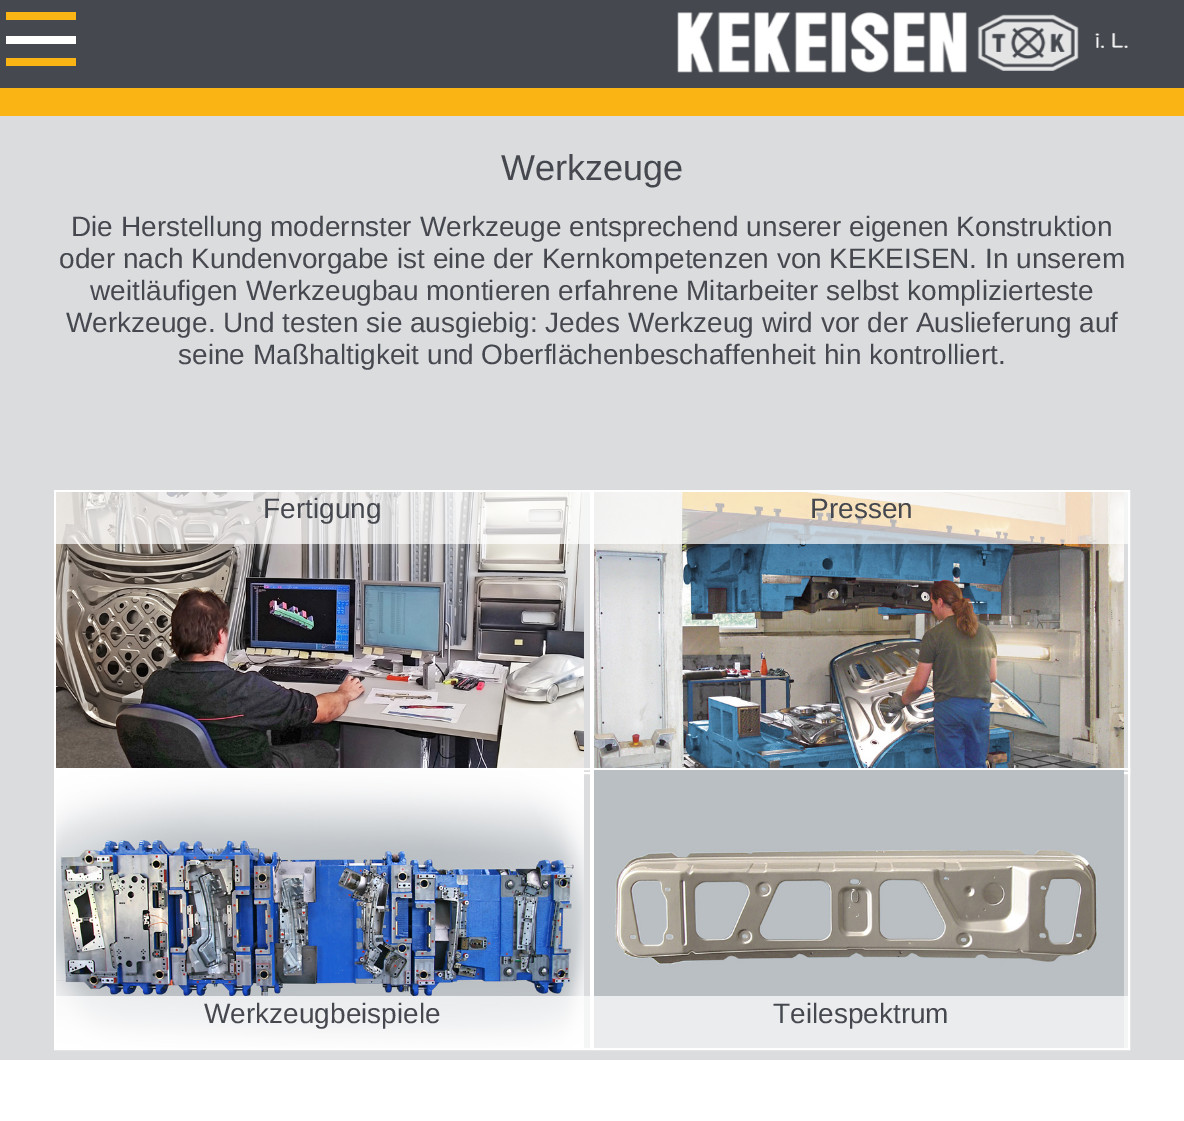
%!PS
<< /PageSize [1184 1121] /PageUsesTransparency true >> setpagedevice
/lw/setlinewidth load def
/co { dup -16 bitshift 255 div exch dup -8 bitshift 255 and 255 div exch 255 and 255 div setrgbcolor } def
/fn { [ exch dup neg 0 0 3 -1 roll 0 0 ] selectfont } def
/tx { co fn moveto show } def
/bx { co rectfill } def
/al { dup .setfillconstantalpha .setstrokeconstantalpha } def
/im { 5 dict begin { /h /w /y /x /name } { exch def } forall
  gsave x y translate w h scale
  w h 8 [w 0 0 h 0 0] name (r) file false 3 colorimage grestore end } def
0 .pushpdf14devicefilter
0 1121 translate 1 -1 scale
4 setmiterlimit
0 0 1184 1121 16#FFFFFF bx
0 0 1184 88 16#45484E bx
6 12 70 8 16#FAB414 bx
6 36 70 8 16#FFFFFF bx
6 58 70 8 16#FAB414 bx
(media/1.raw) 677 12 452 61 im
0 88 1184 28 16#FAB414 bx
0 116 1184 944 16#DADCDE bx
16#FFFFFF co
2 lw
55 491 536 282 rectstroke
(media/2.raw) 56 492 528 276 im
0.7 al
56 492 534 52 16#FFFFFF bx
1 al
593 491 536 282 rectstroke
(media/3.raw) 594 492 530 276 im
0.7 al
594 492 534 52 16#FFFFFF bx
1 al
55 769 536 280 rectstroke
(media/4.raw) 56 770 528 278 im
0.7 al
56 996 534 52 16#FFFFFF bx
1 al
593 769 536 280 rectstroke
(media/5.raw) 594 770 530 278 im
0.7 al
594 996 534 52 16#FFFFFF bx
1 al
(Werkzeuge) 501 180 /LiberationSans-Regular 36 16#45484E tx
(Die Herstellung modernster Werkzeuge entsprechend unserer eigenen Konstruktion) 71 236 /LiberationSans-Regular 28 16#45484E tx
(oder nach Kundenvorgabe ist eine der Kernkompetenzen von KEKEISEN. In unserem) 59 268 /LiberationSans-Regular 28 16#45484E tx
(weitläufigen Werkzeugbau montieren erfahrene Mitarbeiter selbst komplizierteste) 90 300 /LiberationSans-Regular 28 16#45484E tx
(Werkzeuge. Und testen sie ausgiebig: Jedes Werkzeug wird vor der Auslieferung auf) 66 332 /LiberationSans-Regular 28 16#45484E tx
(seine Maßhaltigkeit und Oberflächenbeschaffenheit hin kontrolliert.) 178 364 /LiberationSans-Regular 28 16#45484E tx
(Fertigung) 263 518 /LiberationSans-Regular 28 16#45484E tx
(Pressen) 810 518 /LiberationSans-Regular 28 16#45484E tx
(Werkzeugbeispiele) 204 1023 /LiberationSans-Regular 28 16#45484E tx
(Teilespektrum) 773 1023 /LiberationSans-Regular 28 16#45484E tx
.poppdf14devicefilter showpage
